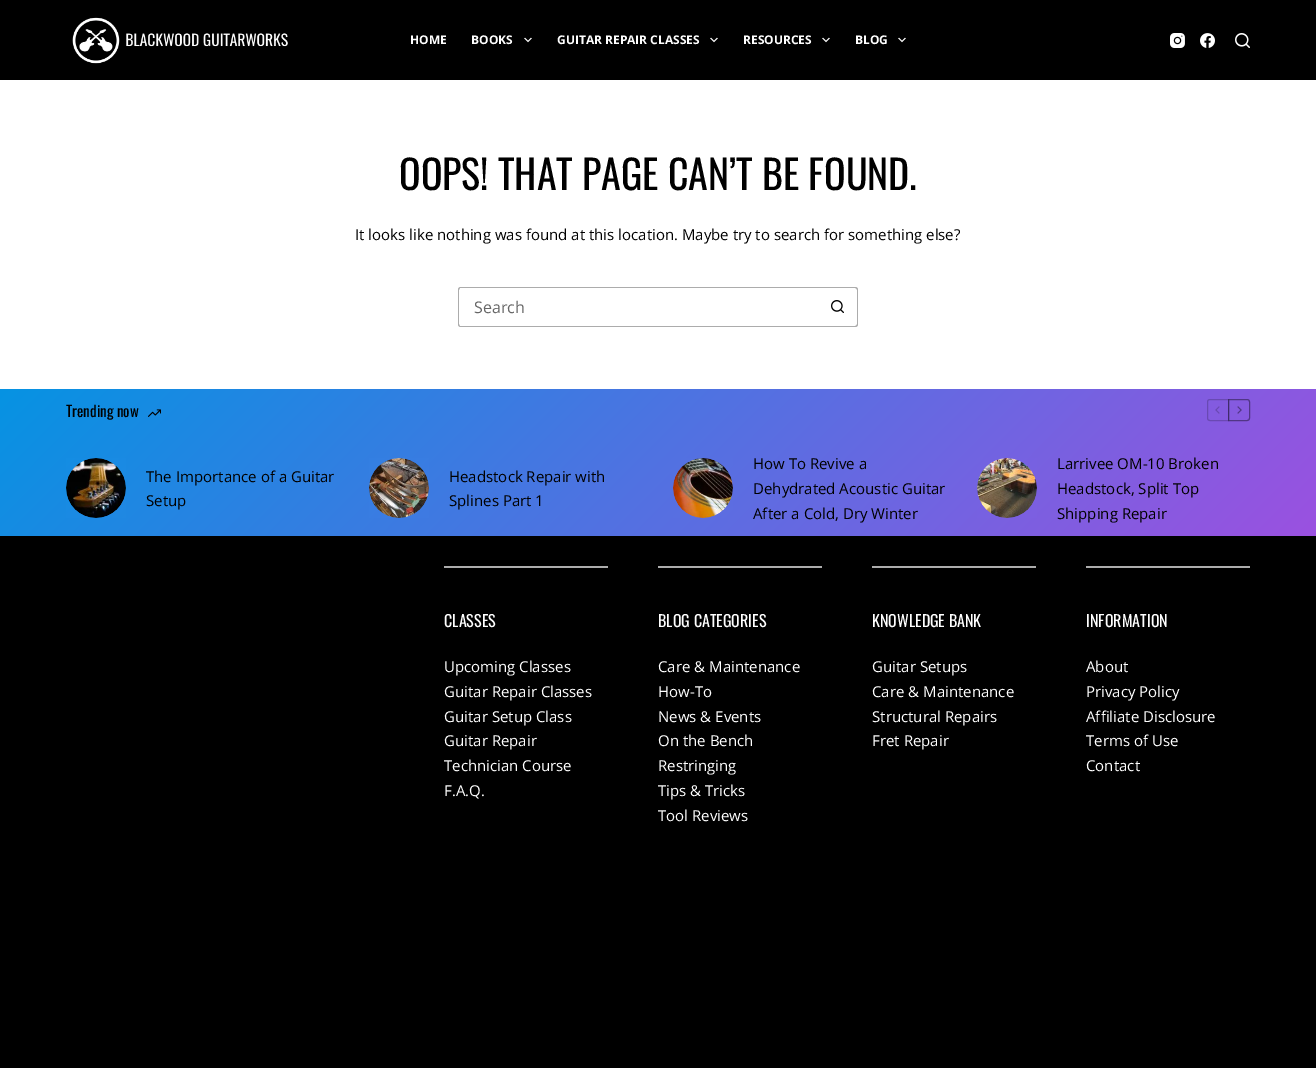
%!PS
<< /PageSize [1316 1068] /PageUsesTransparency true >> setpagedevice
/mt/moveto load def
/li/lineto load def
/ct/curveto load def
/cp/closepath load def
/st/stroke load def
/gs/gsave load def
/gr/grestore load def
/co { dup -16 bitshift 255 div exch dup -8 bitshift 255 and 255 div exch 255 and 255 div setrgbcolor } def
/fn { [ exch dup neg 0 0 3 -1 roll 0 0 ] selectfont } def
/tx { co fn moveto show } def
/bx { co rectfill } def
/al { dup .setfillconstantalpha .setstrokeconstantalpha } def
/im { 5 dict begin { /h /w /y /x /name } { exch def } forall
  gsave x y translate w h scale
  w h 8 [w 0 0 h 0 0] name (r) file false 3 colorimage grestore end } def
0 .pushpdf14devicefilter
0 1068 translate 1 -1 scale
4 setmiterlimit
0 0 1316 1068 16#FFFFFF bx
0 0 1316 80 16#000000 bx
(media/1.raw) 72 17 216 47 im
(media/2.raw) 524 37 8 6 im
(media/2.raw) 710 37 8 6 im
(media/2.raw) 822 37 8 6 im
(media/2.raw) 898 37 8 6 im
(media/3.raw) 1170 33 15 15 im
(media/4.raw) 1200 33 15 15 im
(media/5.raw) 1235 33 15 15 im
16#ACACAC co
461 287 mt 818 287 li 818 327 li 461 327 li 459 327 458 326 458 324 ct 458 290 li 458 288 459 287 461 287 ct cp 461 288 mt 818 288 li 818 326 li 460 326 li 458 324 459 319 459 318 ct 459 290 li 460 288 li cp eofill
818 287 mt 855 287 li 857 287 858 288 858 290 ct 858 324 li 858 326 857 327 855 327 ct 818 327 li cp 818 288 mt 855 288 li 856 288 857 289 857 290 ct 857 324 li 857 325 856 326 855 326 ct 818 326 li cp eofill
(media/6.raw) 831 300 13 13 im
gs 0 389 mt 1316 389 li 1316 536 li 0 536 li cp clip newpath
<< /ShadingType 2 /ColorSpace /DeviceRGB /Coords [292 97 1024 828] /Extend [true true] /Function << /FunctionType 2 /Domain [0 1] /C0 [.024 .576 .89] /C1 [.608 .318 .878] /N 1 >> >> shfill gr
(media/7.raw) 148 409 13 8 im
0.2 al
16#000000 co
1210 399.5 mt 1228.5 399.5 li 1228.5 420.5 li 1210 420.5 li 1208.5 420.5 1207.5 419.5 1207.5 418 ct 1207.5 402 li 1207.5 400.5 1208.5 399.5 1210 399.5 ct cp st
1 al
(media/8.raw) 1215 406 5 8 im
0.4 al
1228.5 399.5 mt 1247 399.5 li 1248.5 399.5 1249.5 400.5 1249.5 402 ct 1249.5 418 li 1249.5 419.5 1248.5 420.5 1247 420.5 ct 1228.5 420.5 li cp st
1 al
(media/9.raw) 1237 406 5 8 im
(media/10.raw) 66 458 60 60 im
(media/11.raw) 369 458 60 60 im
(media/12.raw) 673 458 60 60 im
(media/13.raw) 977 458 60 60 im
0 536 1316 532 16#000000 bx
444 566 164 2 16#ACACAC bx
658 566 164 2 16#ACACAC bx
872 566 164 2 16#ACACAC bx
1086 566 164 2 16#ACACAC bx
(HOME) 410 44 /OpenSans-Bold 12 16#FFFFFF tx
(BOOKS) 471 44 /OpenSans-Bold 12 16#FFFFFF tx
(GUITAR REPAIR CLASSES) 557 44 /OpenSans-Bold 12 16#FFFFFF tx
(RESOURCES) 743 44 /OpenSans-Bold 12 16#FFFFFF tx
(BLOG) 855 44 /OpenSans-Bold 12 16#FFFFFF tx
(OOPS! THAT PAGE CAN’T BE FOUND.) 399 190 /Oswald-Regular 40 16#000000 tx
(It looks like nothing was found at this location. Maybe try to search for something else?) 355 240 /OpenSans-Regular 15 16#000000 tx
(Search) 474 313 /OpenSans-Regular 16 16#666666 tx
(Trending now) 66 417 /Oswald-Regular 15 16#000000 tx
(The Importance of a Guitar) 146 482 /OpenSans-Regular 15 16#000000 tx
(Setup) 146 506 /OpenSans-Regular 15 16#000000 tx
(Headstock Repair with) 449 482 /OpenSans-Regular 15 16#000000 tx
(Splines Part 1) 449 506 /OpenSans-Regular 15 16#000000 tx
(How To Revive a) 753 469 /OpenSans-Regular 15 16#000000 tx
(Dehydrated Acoustic Guitar) 753 494 /OpenSans-Regular 15 16#000000 tx
(After a Cold, Dry Winter) 753 519 /OpenSans-Regular 15 16#000000 tx
(Larrivee OM-10 Broken) 1057 469 /OpenSans-Regular 15 16#000000 tx
(Headstock, Split Top) 1057 494 /OpenSans-Regular 15 16#000000 tx
(Shipping Repair) 1057 519 /OpenSans-Regular 15 16#000000 tx
(CLASSES) 444 627 /Oswald-Regular 16 16#FFFFFF tx
(Upcoming Classes) 444 672 /OpenSans-Regular 15 16#FFFFFF tx
(Guitar Repair Classes) 444 697 /OpenSans-Regular 15 16#FFFFFF tx
(Guitar Setup Class) 444 722 /OpenSans-Regular 15 16#FFFFFF tx
(Guitar Repair) 444 746 /OpenSans-Regular 15 16#FFFFFF tx
(Technician Course) 444 771 /OpenSans-Regular 15 16#FFFFFF tx
(F.A.Q.) 444 796 /OpenSans-Regular 15 16#FFFFFF tx
(BLOG CATEGORIES) 658 627 /Oswald-Regular 16 16#FFFFFF tx
(Care & Maintenance) 658 672 /OpenSans-Regular 15 16#FFFFFF tx
(How-To) 658 697 /OpenSans-Regular 15 16#FFFFFF tx
(News & Events) 658 722 /OpenSans-Regular 15 16#FFFFFF tx
(On the Bench) 658 746 /OpenSans-Regular 15 16#FFFFFF tx
(Restringing) 658 771 /OpenSans-Regular 15 16#FFFFFF tx
(Tips & Tricks) 658 796 /OpenSans-Regular 15 16#FFFFFF tx
(Tool Reviews) 658 821 /OpenSans-Regular 15 16#FFFFFF tx
(KNOWLEDGE BANK) 872 627 /Oswald-Regular 16 16#FFFFFF tx
(Guitar Setups) 872 672 /OpenSans-Regular 15 16#FFFFFF tx
(Care & Maintenance) 872 697 /OpenSans-Regular 15 16#FFFFFF tx
(Structural Repairs) 872 722 /OpenSans-Regular 15 16#FFFFFF tx
(Fret Repair) 872 746 /OpenSans-Regular 15 16#FFFFFF tx
(INFORMATION) 1086 627 /Oswald-Regular 16 16#FFFFFF tx
(About) 1086 672 /OpenSans-Regular 15 16#FFFFFF tx
(Privacy Policy) 1086 697 /OpenSans-Regular 15 16#FFFFFF tx
(Affiliate Disclosure) 1086 722 /OpenSans-Regular 15 16#FFFFFF tx
(Terms of Use) 1086 746 /OpenSans-Regular 15 16#FFFFFF tx
(Contact) 1086 771 /OpenSans-Regular 15 16#FFFFFF tx
.poppdf14devicefilter showpage
